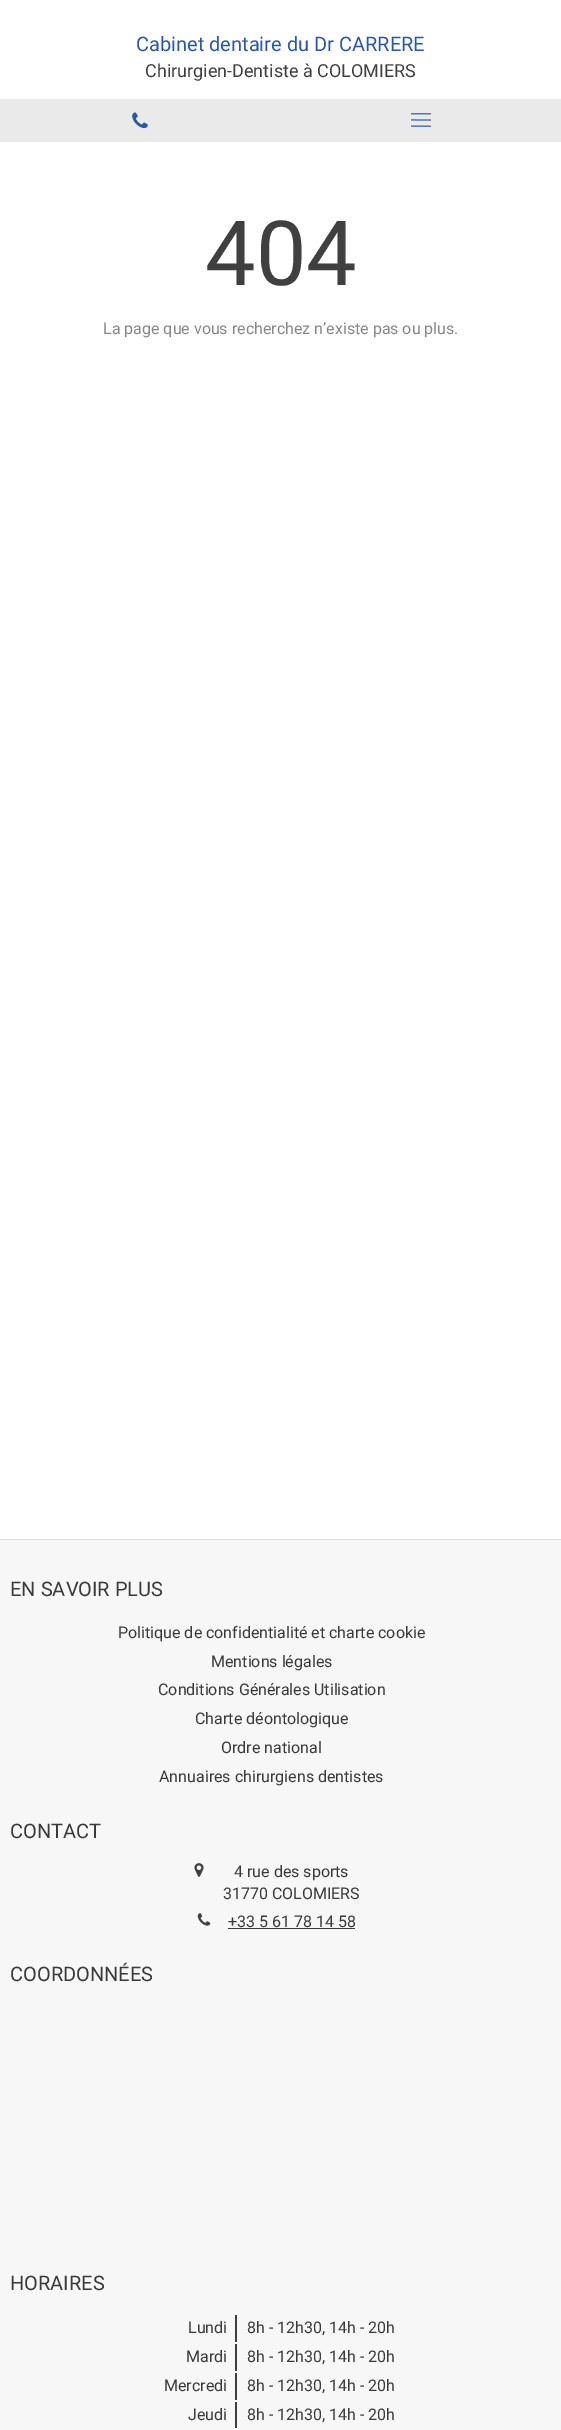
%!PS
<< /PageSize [561 2430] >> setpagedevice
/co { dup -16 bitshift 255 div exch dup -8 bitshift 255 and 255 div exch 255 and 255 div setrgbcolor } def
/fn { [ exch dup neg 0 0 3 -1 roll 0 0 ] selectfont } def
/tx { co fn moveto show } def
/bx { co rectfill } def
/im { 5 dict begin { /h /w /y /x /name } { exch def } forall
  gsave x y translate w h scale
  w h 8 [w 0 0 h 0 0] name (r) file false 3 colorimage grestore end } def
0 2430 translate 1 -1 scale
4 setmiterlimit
0 0 561 2430 16#FFFFFF bx
0 99 561 43 16#EAEAEA bx
(media/1.raw) 132 112 16 17 im
(media/2.raw) 411 113 20 14 im
0 1539 561 1 16#DDDDDD bx
0 1540 561 890 16#F7F7F7 bx
(media/3.raw) 194 1863 10 14 im
(media/4.raw) 197 1913 14 13 im
228 1928 127 1 16#3A3A3A bx
235 2315 2 27 16#404040 bx
235 2344 2 27 16#404040 bx
235 2373 2 27 16#404040 bx
235 2402 2 26 16#404040 bx
(Cabinet dentaire du Dr CARRERE) 136 51 /Roboto-Regular 20 16#2C57A7 tx
(Chirurgien-Dentiste à COLOMIERS) 145 77 /Roboto-Regular 18 16#404040 tx
(404) 205 285 /Roboto-Regular 90 16#404040 tx
(La page que vous recherchez n’existe pas ou plus.) 103 334 /Roboto-Regular 16 16#888888 tx
(EN SAVOIR PLUS) 10 1596 /Roboto-Regular 20 16#3A3A3A tx
(Politique de confidentialité et charte cookie) 118 1638 /Roboto-Regular 16 16#3A3A3A tx
(Mentions légales) 211 1667 /Roboto-Regular 16 16#3A3A3A tx
(Conditions Générales Utilisation) 158 1695 /Roboto-Regular 16 16#3A3A3A tx
(Charte déontologique) 195 1724 /Roboto-Regular 16 16#3A3A3A tx
(Ordre national) 221 1753 /Roboto-Regular 16 16#3A3A3A tx
(Annuaires chirurgiens dentistes) 159 1782 /Roboto-Regular 16 16#3A3A3A tx
(CONTACT) 10 1838 /Roboto-Regular 20 16#3A3A3A tx
(4 rue des sports) 234 1877 /Roboto-Regular 16 16#3A3A3A tx
(31770 COLOMIERS) 223 1899 /Roboto-Regular 16 16#3A3A3A tx
(+33 5 61 78 14 58) 228 1927 /Roboto-Regular 16 16#3A3A3A tx
(COORDONNÉES) 10 1981 /Roboto-Regular 20 16#3A3A3A tx
(HORAIRES) 10 2290 /Roboto-Regular 20 16#3A3A3A tx
(Lundi) 188 2333 /Roboto-Regular 16 16#3A3A3A tx
(8h - 12h30, 14h - 20h) 247 2333 /Roboto-Regular 16 16#3A3A3A tx
(Mardi) 186 2362 /Roboto-Regular 16 16#3A3A3A tx
(8h - 12h30, 14h - 20h) 247 2362 /Roboto-Regular 16 16#3A3A3A tx
(Mercredi) 164 2391 /Roboto-Regular 16 16#3A3A3A tx
(8h - 12h30, 14h - 20h) 247 2391 /Roboto-Regular 16 16#3A3A3A tx
(Jeudi) 188 2420 /Roboto-Regular 16 16#3A3A3A tx
(8h - 12h30, 14h - 20h) 247 2420 /Roboto-Regular 16 16#3A3A3A tx
showpage
